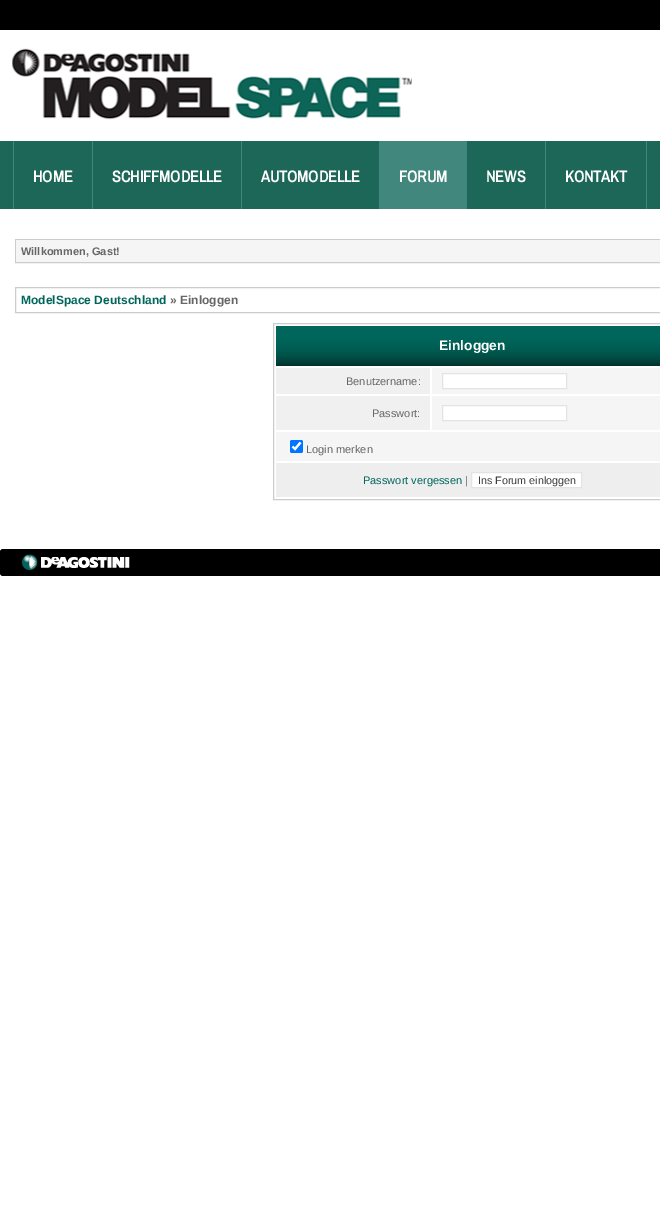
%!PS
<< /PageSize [660 1228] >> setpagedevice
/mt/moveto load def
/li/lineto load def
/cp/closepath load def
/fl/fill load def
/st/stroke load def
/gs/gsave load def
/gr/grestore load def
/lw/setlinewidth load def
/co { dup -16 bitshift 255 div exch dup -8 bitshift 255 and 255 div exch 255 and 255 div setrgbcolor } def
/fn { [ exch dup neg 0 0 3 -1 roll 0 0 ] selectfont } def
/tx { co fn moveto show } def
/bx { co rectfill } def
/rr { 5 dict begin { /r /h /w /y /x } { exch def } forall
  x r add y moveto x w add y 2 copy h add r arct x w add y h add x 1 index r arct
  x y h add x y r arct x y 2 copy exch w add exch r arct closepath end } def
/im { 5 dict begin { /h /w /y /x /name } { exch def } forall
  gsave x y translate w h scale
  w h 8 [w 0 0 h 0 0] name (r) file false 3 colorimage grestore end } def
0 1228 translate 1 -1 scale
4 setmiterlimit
0 0 660 1228 16#FFFFFF bx
0 0 660 30 16#000000 bx
(media/1.raw) 12 48 400 72 im
0 141 660 68 16#1D6758 bx
13 141 1 68 16#42877D bx
92 141 1 68 16#42877D bx
241 141 1 68 16#42877D bx
379 141 1 68 16#42877D bx
380 141 87 68 16#42877D bx
545 141 1 68 16#42877D bx
646 141 1 68 16#42877D bx
16#CCCCCC co
15.5 239.5 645 23 rectstroke
16 240 644 22 16#F5F5F5 bx
16#CCCCCC co
15.5 287.5 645 25 rectstroke
273.5 323.5 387 176 rectstroke
(media/2.raw) 276 326 384 40 im
276 368 154 26 16#F0F0F0 bx
432 368 228 26 16#F5F5F5 bx
16#FFFFFF co
442.5 373.5 mt 566.5 373.5 li 566.5 388.5 li 442.5 388.5 li cp gs fl gr
16#E3E3E3 co
st
276 396 154 34 16#F0F0F0 bx
432 396 228 34 16#F5F5F5 bx
16#FFFFFF co
442.5 405.5 mt 566.5 405.5 li 566.5 420.5 li 442.5 420.5 li cp gs fl gr
16#E3E3E3 co
st
276 432 384 29 16#F5F5F5 bx
16#0075FF co
290 440 13 13 2 rr fl
16#FFFFFF co
2.1 lw
292.5 446.5 mt 295 449 li 300.5 442.5 li st
276 463 384 34 16#EEEEEE bx
16#FFFFFF co
471.5 472.5 mt 581.5 472.5 li 581.5 487.5 li 471.5 487.5 li cp gs fl gr
16#E3E3E3 co
1 lw
st
16#000000 co
0 549 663 27 3 rr fl
(media/3.raw) 22 554 108 16 im
(HOME) 33 182 /ArchivoNarrow-Bold 16 16#FFFFFF tx
(SCHIFFMODELLE) 112 182 /ArchivoNarrow-Bold 16 16#FFFFFF tx
(AUTOMODELLE) 261 182 /ArchivoNarrow-Bold 16 16#FFFFFF tx
(FORUM) 399 182 /ArchivoNarrow-Bold 16 16#FFFFFF tx
(NEWS) 486 182 /ArchivoNarrow-Bold 16 16#FFFFFF tx
(KONTAKT) 565 182 /ArchivoNarrow-Bold 16 16#FFFFFF tx
(Willkommen, Gast!) 21 255 /LiberationSans-Bold 11 16#666666 tx
(ModelSpace Deutschland) 21 304 /LiberationSans-Bold 12 16#00665B tx
(» Einloggen) 170 304 /LiberationSans-Bold 12 16#666666 tx
(Einloggen) 439 350 /LiberationSans-Bold 13.75 16#FFFFFF tx
(Benutzername:) 346 385 /LiberationSans-Regular 11 16#666666 tx
(Passwort:) 372 417 /LiberationSans-Regular 11 16#666666 tx
(Login merken) 306 453 /LiberationSans-Regular 11 16#666666 tx
(Passwort vergessen) 363 484 /LiberationSans-Regular 11 16#00665B tx
(|) 465 484 /LiberationSans-Regular 11 16#666666 tx
(Ins Forum einloggen) 478 484 /LiberationSans-Regular 10.75 16#3B3B3B tx
showpage
